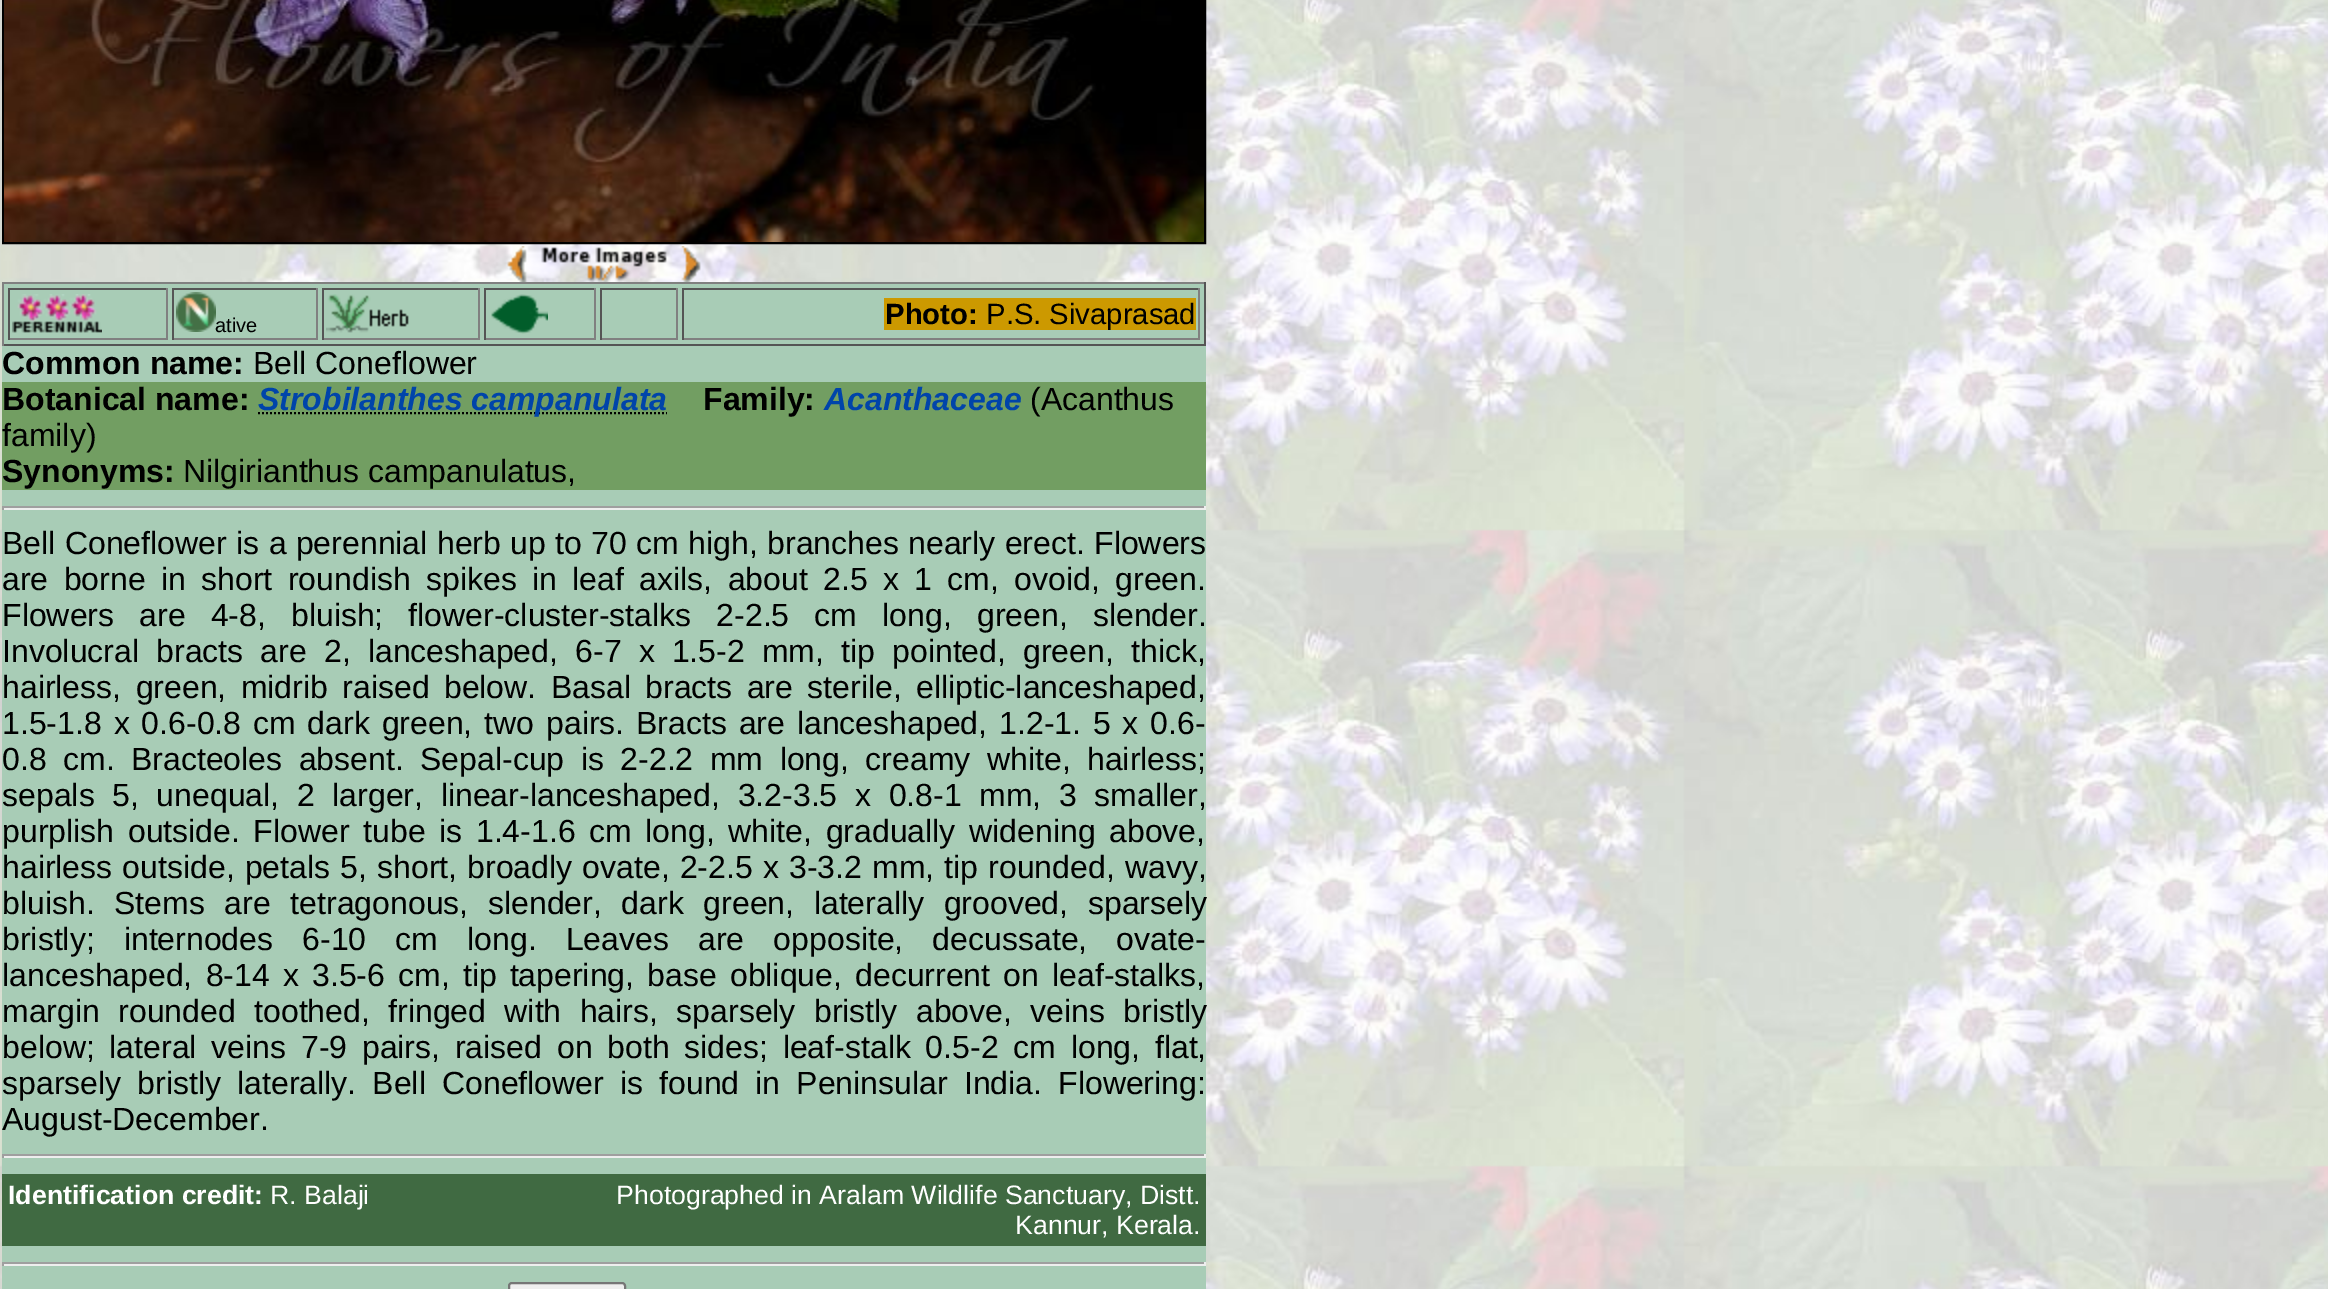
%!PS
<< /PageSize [2328 1289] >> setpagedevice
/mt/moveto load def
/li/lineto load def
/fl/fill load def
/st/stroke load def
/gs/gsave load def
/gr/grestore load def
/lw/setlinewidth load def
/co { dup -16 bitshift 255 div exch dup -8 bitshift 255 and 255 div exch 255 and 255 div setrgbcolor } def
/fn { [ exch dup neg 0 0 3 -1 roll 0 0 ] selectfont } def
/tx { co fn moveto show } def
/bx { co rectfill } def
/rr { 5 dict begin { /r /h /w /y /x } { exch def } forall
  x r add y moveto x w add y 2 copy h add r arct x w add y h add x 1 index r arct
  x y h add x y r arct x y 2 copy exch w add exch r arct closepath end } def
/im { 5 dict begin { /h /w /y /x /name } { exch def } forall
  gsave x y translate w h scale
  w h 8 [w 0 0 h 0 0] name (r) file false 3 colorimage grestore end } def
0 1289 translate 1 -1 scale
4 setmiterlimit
0 0 2328 1289 16#FFFFFF bx
(media/1.raw) 0 0 2328 1289 im
16#000000 co
2 lw
3 -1 1202 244 rectstroke
(media/2.raw) 4 0 1200 242 im
(media/3.raw) 507 246 20 36 im
(media/4.raw) 541 247 126 35 im
(media/5.raw) 681 246 20 36 im
2 284 1204 1005 16#A8CCB6 bx
2 282 1204 2 16#808080 bx
1204 282 2 64 16#555555 bx
2 344 1204 2 16#555555 bx
2 282 2 64 16#808080 bx
8 288 160 2 16#555555 bx
166 288 2 52 16#808080 bx
8 338 160 2 16#808080 bx
8 288 2 52 16#555555 bx
(media/6.raw) 12 294 90 39 im
172 288 146 2 16#555555 bx
316 288 2 52 16#808080 bx
172 338 146 2 16#808080 bx
172 288 2 52 16#555555 bx
(media/7.raw) 176 292 40 40 im
322 288 158 2 16#555555 bx
478 288 2 52 16#808080 bx
322 338 158 2 16#808080 bx
322 288 2 52 16#555555 bx
(media/8.raw) 326 294 83 39 im
484 288 112 2 16#555555 bx
594 288 2 52 16#808080 bx
484 338 112 2 16#808080 bx
484 288 2 52 16#555555 bx
(media/9.raw) 491 294 57 40 im
600 288 78 2 16#555555 bx
676 288 2 52 16#808080 bx
600 338 78 2 16#808080 bx
600 288 2 52 16#555555 bx
682 288 518 2 16#555555 bx
1198 288 2 52 16#808080 bx
682 338 518 2 16#808080 bx
682 288 2 52 16#555555 bx
884 298 312 32 16#CC9900 bx
2 382 1204 108 16#729E62 bx
16#000000 co
[2 2] 0 setdash
258 413 mt 667 413 li st
2 506 1204 2 16#9F9F9F bx
1204 506 2 4 16#EEEEEE bx
2 508 1204 2 16#EEEEEE bx
2 506 2 4 16#9F9F9F bx
2 1154 1204 2 16#9F9F9F bx
1204 1154 2 4 16#EEEEEE bx
2 1156 1204 2 16#EEEEEE bx
2 1154 2 4 16#9F9F9F bx
2 1174 1204 72 16#406A42 bx
2 1262 1204 2 16#9F9F9F bx
1204 1262 2 4 16#EEEEEE bx
2 1264 1204 2 16#EEEEEE bx
2 1262 2 4 16#9F9F9F bx
16#EFEFEF co
509 1283 116 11 3 rr gs fl gr
16#767676 co
[] 0 setdash
st
(ative) 215 332 /LiberationSans-Regular 20 16#000000 tx
(Photo:) 885 324 /LiberationSans-Bold 29.25 16#000000 tx
(P.S. Sivaprasad) 986 324 /LiberationSans-Regular 29.25 16#000000 tx
(Common name:) 2 374 /LiberationSans-Bold 32 16#000000 tx
(Bell Coneflower) 253 374 /LiberationSans-Regular 32 16#000000 tx
(Botanical name:) 2 410 /LiberationSans-Bold 32 16#000000 tx
(Strobilanthes campanulata) 258 410 /LiberationSans-BoldItalic 32 16#0044AA tx
(Family:) 703 410 /LiberationSans-Bold 32 16#000000 tx
(Acanthaceae) 824 410 /LiberationSans-BoldItalic 32 16#0044AA tx
(\(Acanthus) 1030 410 /LiberationSans-Regular 32 16#000000 tx
(family\)) 2 446 /LiberationSans-Regular 32 16#000000 tx
(Synonyms:) 2 482 /LiberationSans-Bold 32 16#000000 tx
(Nilgirianthus campanulatus,) 183 482 /LiberationSans-Regular 32 16#000000 tx
2 554 mt .5 0 32 (Bell Coneflower is a perennial herb up to 70 cm high, branches nearly erect.) widthshow
(Flowers) 1094 554 /LiberationSans-Regular 32 16#000000 tx
2 590 mt 6.5 0 32 (are borne in short roundish spikes in leaf axils, about 2.5 x 1 cm, ovoid, green.) widthshow
2 626 mt 16.25 0 32 (Flowers are 4-8, bluish; flower-cluster-stalks 2-2.5 cm long, green, slender.) widthshow
2 662 mt 8.25 0 32 (Involucral bracts are 2, lanceshaped, 6-7 x 1.5-2 mm, tip pointed, green, thick,) widthshow
2 698 mt 5.5 0 32 (hairless, green, midrib raised below. Basal bracts are sterile, elliptic-lanceshaped,) widthshow
2 734 mt 3 0 32 (1.5-1.8 x 0.6-0.8 cm dark green, two pairs. Bracts are lanceshaped, 1.2-1. 5 x 0.6-) widthshow
2 770 mt 7.6 0 32 (0.8 cm. Bracteoles absent. Sepal-cup is 2-2.2 mm long, creamy white, hairless;) widthshow
2 806 mt 8.75 0 32 (sepals 5, unequal, 2 larger, linear-lanceshaped, 3.2-3.5 x 0.8-1 mm, 3 smaller,) widthshow
2 842 mt 4.75 0 32 (purplish outside. Flower tube is 1.4-1.6 cm long, white, gradually widening above,) widthshow
2 878 mt 1.25 0 32 (hairless outside, petals 5, short, broadly ovate, 2-2.5 x 3-3.2 mm, tip rounded, wavy,) widthshow
2 914 mt 10.75 0 32 (bluish. Stems are tetragonous, slender, dark green, laterally grooved, sparsely) widthshow
2 950 mt 20.25 0 32 (bristly; internodes 6-10 cm long. Leaves are opposite, decussate, ovate-) widthshow
2 986 mt 4.25 0 32 (lanceshaped, 8-14 x 3.5-6 cm, tip tapering, base oblique, decurrent on leaf-stalks,) widthshow
2 1022 mt 9.5 0 32 (margin rounded toothed, fringed with hairs, sparsely bristly above, veins bristly) widthshow
2 1058 mt 5.9 0 32 (below; lateral veins 7-9 pairs, raised on both sides; leaf-stalk 0.5-2 cm long, flat,) widthshow
2 1094 mt 7.25 0 32 (sparsely bristly laterally. Bell Coneflower is found in Peninsular India. Flowering:) widthshow
(August-December.) 2 1130 /LiberationSans-Regular 32 16#000000 tx
(Identification credit:) 8 1204 /LiberationSans-Bold 26.7 16#FFFFFF tx
(R. Balaji) 270 1204 /LiberationSans-Regular 26.7 16#FFFFFF tx
(Photographed in Aralam Wildlife Sanctuary, Distt.) 616 1204 /LiberationSans-Regular 26.7 16#FFFFFF tx
(Kannur, Kerala.) 1015 1234 /LiberationSans-Regular 26.7 16#FFFFFF tx
showpage
